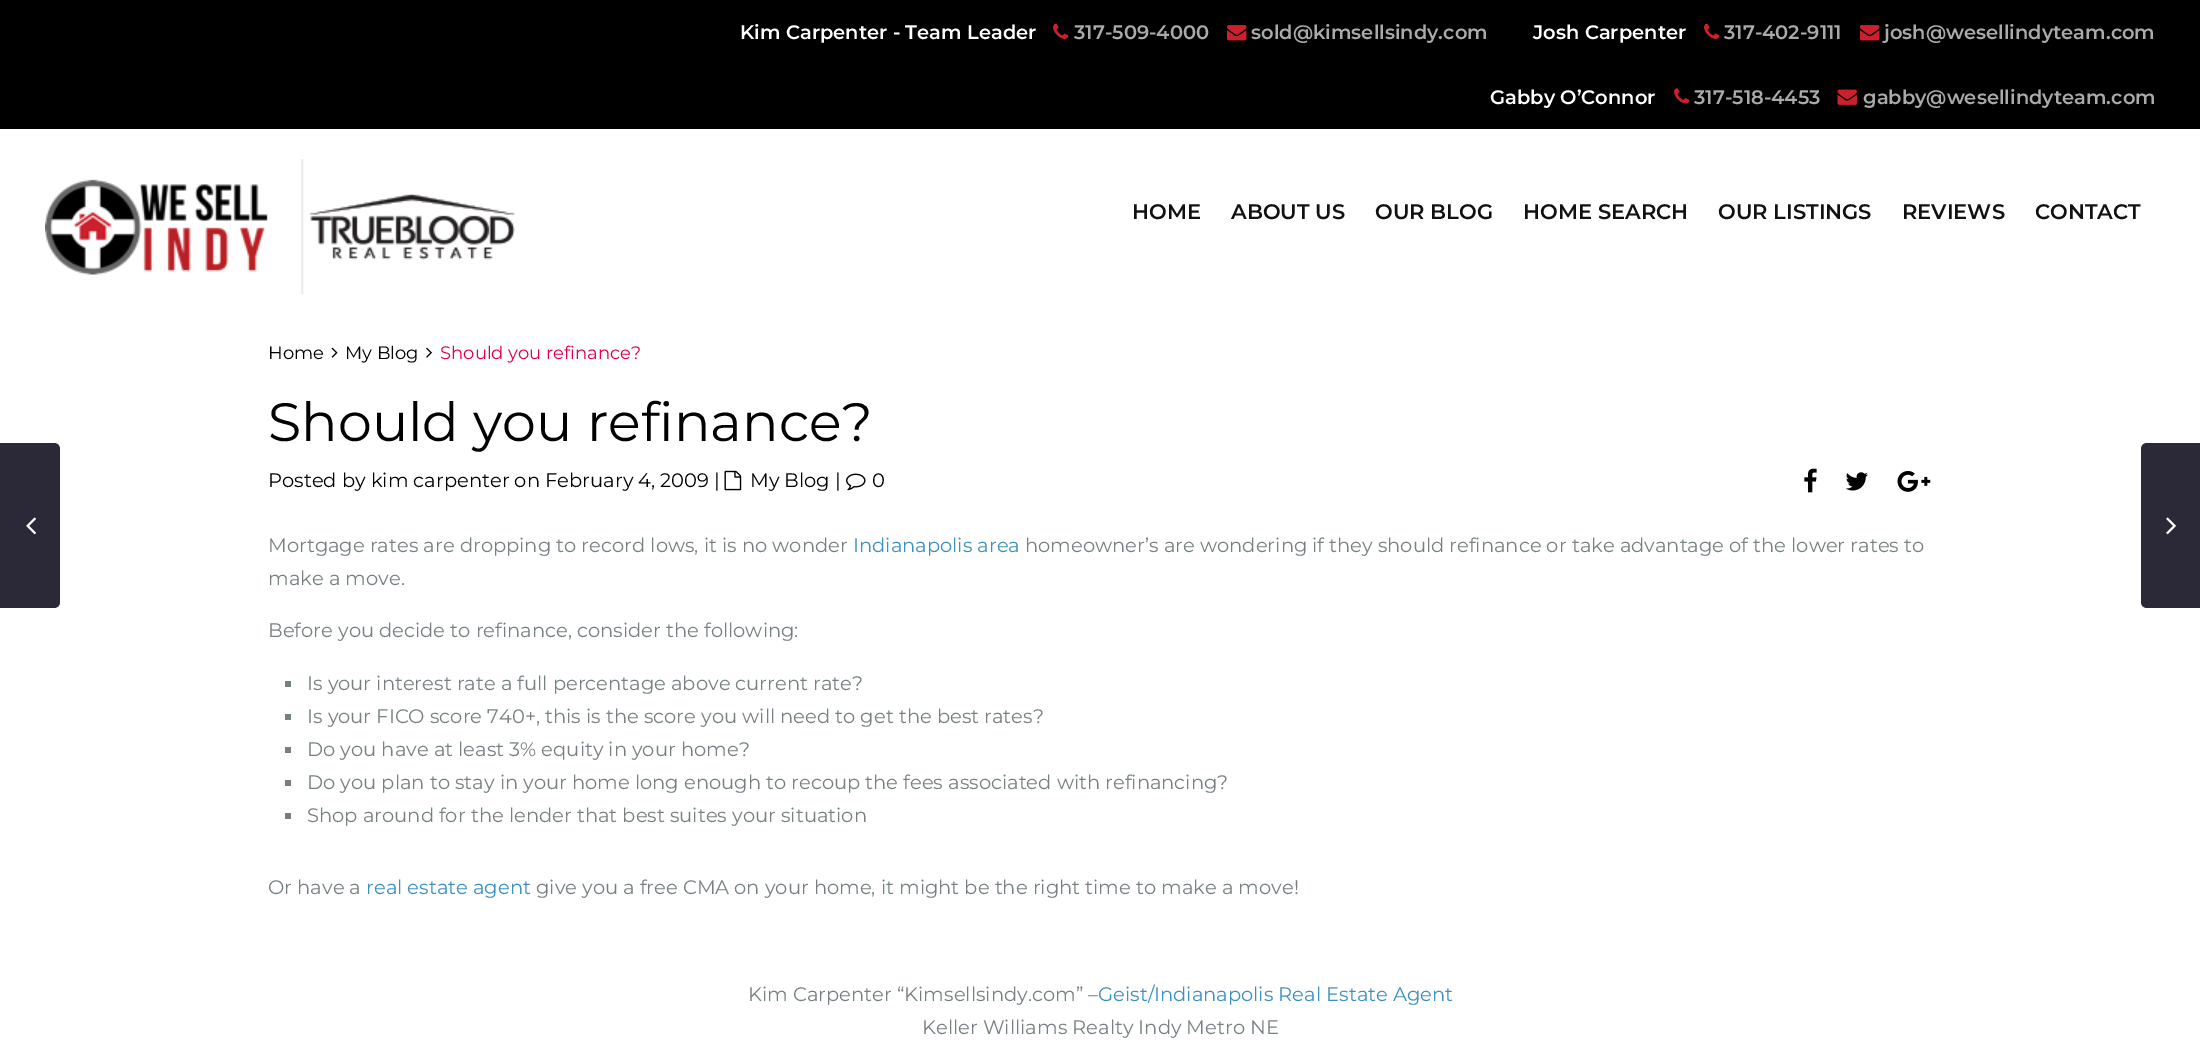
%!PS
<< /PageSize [2200 1049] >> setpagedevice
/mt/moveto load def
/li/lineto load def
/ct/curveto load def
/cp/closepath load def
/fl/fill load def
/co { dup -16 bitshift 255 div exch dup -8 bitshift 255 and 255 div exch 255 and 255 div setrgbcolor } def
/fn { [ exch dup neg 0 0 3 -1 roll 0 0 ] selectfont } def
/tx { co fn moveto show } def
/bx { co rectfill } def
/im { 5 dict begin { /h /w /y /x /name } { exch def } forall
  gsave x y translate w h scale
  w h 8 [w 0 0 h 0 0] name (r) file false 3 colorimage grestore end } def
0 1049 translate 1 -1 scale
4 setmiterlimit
0 0 2200 1049 16#FFFFFF bx
0 0 2200 129 16#000000 bx
(media/1.raw) 1053 23 16 16 im
(media/2.raw) 1227 25 20 16 im
(media/1.raw) 1704 23 16 16 im
(media/2.raw) 1860 25 20 16 im
(media/3.raw) 1674 88 16 16 im
(media/4.raw) 1837 89 20 16 im
(media/5.raw) 45 159 470 135 im
(media/6.raw) 331 347 7 11 im
(media/7.raw) 426 347 6 11 im
(media/8.raw) 724 470 18 21 im
(media/9.raw) 846 473 20 18 im
(media/10.raw) 1804 468 13 25 im
(media/11.raw) 1845 472 23 19 im
(media/12.raw) 1897 471 34 21 im
285 681 6 6 16#768082 bx
285 714 6 6 16#768082 bx
285 747 6 6 16#768082 bx
285 780 6 6 16#768082 bx
285 813 6 6 16#768082 bx
16#2B2937 co
-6 443 mt 54 443 li 57.5 443 60 445.5 60 449 ct 60 602 li 60 605.5 57.5 608 54 608 ct -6 608 li cp fl
(media/13.raw) 26 517 10 18 im
2147 443 mt 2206 443 li 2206 608 li 2147 608 li 2143.5 608 2141 605.5 2141 602 ct 2141 449 li 2141 445.5 2143.5 443 2147 443 ct cp fl
(media/14.raw) 2166 517 10 18 im
(Kim Carpenter - Team Leader) 740 39 /Montserrat-SemiBold 19.5 16#FFFFFF tx
(317-509-4000) 1074 39 /Montserrat-SemiBold 19.5 16#AAAAAA tx
(sold@kimsellsindy.com) 1251 39 /Montserrat-SemiBold 19.5 16#AAAAAA tx
(Josh Carpenter) 1533 39 /Montserrat-SemiBold 19.5 16#FFFFFF tx
(317-402-9111) 1724 39 /Montserrat-SemiBold 19.5 16#AAAAAA tx
(josh@wesellindyteam.com) 1884 39 /Montserrat-SemiBold 19.5 16#AAAAAA tx
(Gabby O’Connor) 1490 104 /Montserrat-SemiBold 19.5 16#FFFFFF tx
(317-518-4453) 1694 104 /Montserrat-SemiBold 19.5 16#AAAAAA tx
(gabby@wesellindyteam.com) 1863 104 /Montserrat-SemiBold 19.5 16#AAAAAA tx
(HOME) 1132 219 /Montserrat-SemiBold 21 16#111111 tx
(ABOUT US) 1231 219 /Montserrat-SemiBold 21 16#111111 tx
(OUR BLOG) 1375 219 /Montserrat-SemiBold 21 16#111111 tx
(HOME SEARCH) 1523 219 /Montserrat-SemiBold 21 16#111111 tx
(OUR LISTINGS) 1718 219 /Montserrat-SemiBold 21 16#111111 tx
(REVIEWS) 1902 219 /Montserrat-SemiBold 21 16#111111 tx
(CONTACT) 2035 219 /Montserrat-SemiBold 21 16#111111 tx
(Home) 268 359 /Montserrat-Regular 18 16#000000 tx
(My Blog) 345 359 /Montserrat-Regular 18 16#000000 tx
(Should you refinance?) 440 359 /Montserrat-Regular 18 16#E30048 tx
(Should you refinance?) 268 441 /Montserrat-Regular 54 16#000000 tx
(Posted by kim carpenter on February 4, 2009 |) 268 487 /Montserrat-Regular 19.5 16#000000 tx
(My Blog |) 750 487 /Montserrat-Regular 19.5 16#000000 tx
(0) 872 487 /Montserrat-Regular 19.5 16#000000 tx
(Mortgage rates are dropping to record lows, it is no wonder) 268 552 /Montserrat-Regular 19.5 16#768082 tx
(Indianapolis area) 853 552 /Montserrat-Regular 19.5 16#3C90BE tx
(homeowner’s are wondering if they should refinance or take advantage of the lower rates to) 1025 552 /Montserrat-Regular 19.5 16#768082 tx
(make a move.) 268 585 /Montserrat-Regular 19.5 16#768082 tx
(Before you decide to refinance, consider the following:) 268 637 /Montserrat-Regular 19.5 16#768082 tx
(Is your interest rate a full percentage above current rate?) 307 690 /Montserrat-Regular 19.5 16#768082 tx
(Is your FICO score 740+, this is the score you will need to get the best rates?) 307 723 /Montserrat-Regular 19.5 16#768082 tx
(Do you have at least 3% equity in your home?) 307 756 /Montserrat-Regular 19.5 16#768082 tx
(Do you plan to stay in your home long enough to recoup the fees associated with refinancing?) 307 789 /Montserrat-Regular 19.5 16#768082 tx
(Shop around for the lender that best suites your situation) 307 822 /Montserrat-Regular 19.5 16#768082 tx
(Or have a) 268 894 /Montserrat-Regular 19.5 16#768082 tx
(real estate agent) 366 894 /Montserrat-Regular 19.5 16#3C90BE tx
(give you a free CMA on your home, it might be the right time to make a move!) 536 894 /Montserrat-Regular 19.5 16#768082 tx
(Kim Carpenter “Kimsellsindy.com” –) 748 1001 /Montserrat-Regular 19.5 16#768082 tx
(Geist/Indianapolis Real Estate Agent) 1098 1001 /Montserrat-Regular 19.5 16#3C90BE tx
(Keller Williams Realty Indy Metro NE) 922 1034 /Montserrat-Regular 19.5 16#768082 tx
showpage
